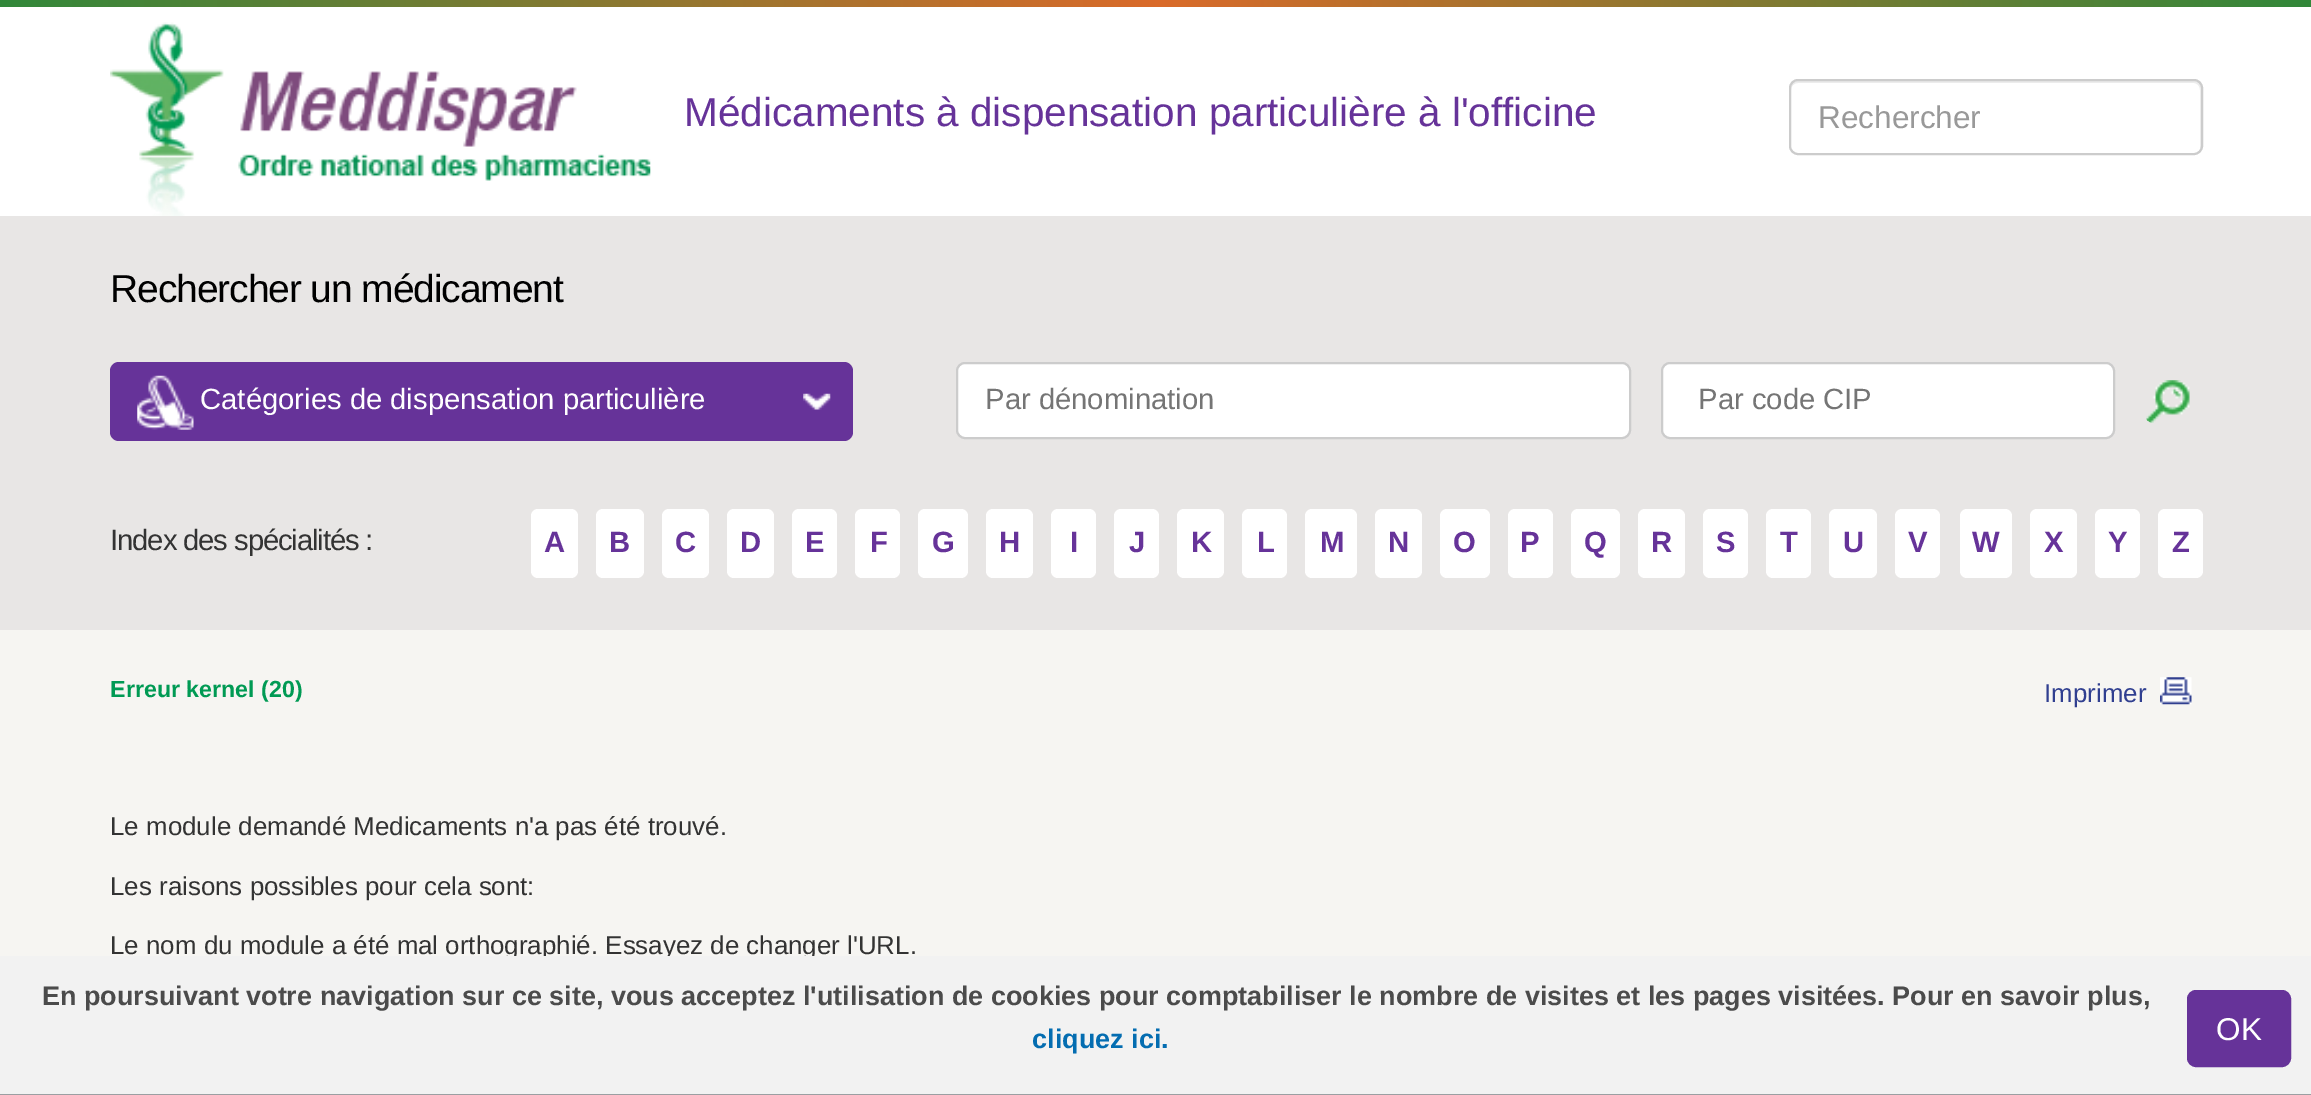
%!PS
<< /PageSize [2311 1095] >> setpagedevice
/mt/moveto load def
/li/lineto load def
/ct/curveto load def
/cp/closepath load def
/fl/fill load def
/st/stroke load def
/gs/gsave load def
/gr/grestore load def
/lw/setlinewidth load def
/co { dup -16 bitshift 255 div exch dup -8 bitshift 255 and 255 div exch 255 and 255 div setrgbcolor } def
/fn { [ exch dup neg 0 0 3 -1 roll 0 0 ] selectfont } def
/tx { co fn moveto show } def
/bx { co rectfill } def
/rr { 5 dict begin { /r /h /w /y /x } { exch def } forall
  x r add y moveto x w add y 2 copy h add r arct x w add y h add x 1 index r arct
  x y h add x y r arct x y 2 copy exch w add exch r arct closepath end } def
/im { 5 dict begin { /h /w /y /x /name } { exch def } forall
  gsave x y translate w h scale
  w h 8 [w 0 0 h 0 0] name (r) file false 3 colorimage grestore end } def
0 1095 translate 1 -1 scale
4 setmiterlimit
0 0 2311 1095 16#F6F5F2 bx
gs 0 0 mt 2311 0 li 2311 7 li 0 7 li cp clip newpath
<< /ShadingType 2 /ColorSpace /DeviceRGB /Coords [0 3.4 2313 3.4] /Extend [true true] /Function << /FunctionType 3 /Domain [0 1] /Functions [<< /FunctionType 2 /Domain [0 1] /C0 [.192 .533 .227] /C1 [.855 .416 .161] /N 1 >> << /FunctionType 2 /Domain [0 1] /C0 [.855 .416 .161] /C1 [.192 .533 .227] /N 1 >>] /Bounds [.5] /Encode [0 1 0 1] >> >> shfill gr
0 7 2311 209 16#FFFFFF bx
(media/1.raw) 110 22 541 194 im
16#ECECEC co
1798 83 mt 2194 83 li 2197 83 2200 86 2200 90 ct 2200 150 li 2201 149 2201 147 2201 146 ct 2201 88 li 2201 84 2198 81 2194 81 ct 1798 81 li 1794 81 1791 84 1791 88 ct 1791 90 li 1791 86 1794 83 1798 83 ct cp fl
16#CCCCCC co
2 lw
1790 80 412 74 8 rr st
0 216 2311 414 16#E8E6E5 bx
16#663399 co
110 362 743 79 9 rr fl
(media/2.raw) 137 375 57 55 im
(media/3.raw) 803 393 28 17 im
16#FFFFFF co
957 363 673 75 8 rr gs fl gr
16#CCCCCC co
st
16#FFFFFF co
1662 363 452 75 8 rr gs fl gr
16#CCCCCC co
st
(media/4.raw) 2146 380 44 43 im
16#FFFFFF co
531 509 47 69 7 rr fl
596 509 48 69 7 rr fl
662 509 47 69 7 rr fl
727 509 47 69 7 rr fl
792 509 45 69 7 rr fl
855 509 45 69 7 rr fl
918 509 50 69 7 rr fl
986 509 47 69 7 rr fl
1051 509 45 69 7 rr fl
1114 509 45 69 7 rr fl
1177 509 47 69 7 rr fl
1242 509 45 69 7 rr fl
1305 509 52 69 7 rr fl
1375 509 47 69 7 rr fl
1440 509 50 69 7 rr fl
1508 509 45 69 7 rr fl
1571 509 49 69 7 rr fl
1638 509 47 69 7 rr fl
1703 509 45 69 7 rr fl
1766 509 45 69 7 rr fl
1829 509 48 69 7 rr fl
1895 509 45 69 7 rr fl
1960 509 52 69 7 rr fl
2030 509 47 69 7 rr fl
2095 509 45 69 7 rr fl
2158 509 45 69 7 rr fl
(media/5.raw) 2160 677 32 28 im
0 1094 2311 1 16#9B9FA2 bx
(Médicaments à dispensation particulière à l'officine) 684 126 /LiberationSans-Regular 40.5 16#663399 tx
(Rechercher) 1818 128 /LiberationSans-Regular 31.5 16#999999 tx
/LiberationSans-Regular 39 fn
16#000000 co
110 302 mt -1.1 0 (Rechercher un médicament) ashow
(Catégories de dispensation particulière) 200 409 /LiberationSans-Regular 29.25 16#FFFFFF tx
(Par dénomination) 985 409 /LiberationSans-Regular 29.25 16#757575 tx
(Par code CIP) 1698 409 /LiberationSans-Regular 29.25 16#757575 tx
16#333333 co
110 550 mt -1.1 0 (Index des spécialités :) ashow
/LiberationSans-Bold 29.25 fn
16#663399 co
544 552 mt -1.1 0 (A) ashow
609 552 mt -1.1 0 (B) ashow
675 552 mt -1.1 0 (C) ashow
740 552 mt -1.1 0 (D) ashow
805 552 mt -1.1 0 (E) ashow
870 552 mt -1.1 0 (F) ashow
932 552 mt -1.1 0 (G) ashow
999 552 mt -1.1 0 (H) ashow
1070 552 mt -1.1 0 (I) ashow
1129 552 mt -1.1 0 (J) ashow
1191 552 mt -1.1 0 (K) ashow
1257 552 mt -1.1 0 (L) ashow
1320 552 mt -1.1 0 (M) ashow
1388 552 mt -1.1 0 (N) ashow
1453 552 mt -1.1 0 (O) ashow
1520 552 mt -1.1 0 (P) ashow
1584 552 mt -1.1 0 (Q) ashow
1651 552 mt -1.1 0 (R) ashow
1716 552 mt -1.1 0 (S) ashow
1780 552 mt -1.1 0 (T) ashow
1843 552 mt -1.1 0 (U) ashow
1908 552 mt -1.1 0 (V) ashow
1972 552 mt -1.1 0 (W) ashow
2044 552 mt -1.1 0 (X) ashow
2108 552 mt -1.1 0 (Y) ashow
2172 552 mt -1.1 0 (Z) ashow
(Erreur kernel \(20\)) 110 697 /LiberationSans-Bold 23.25 16#009A54 tx
(Imprimer) 2044 702 /LiberationSans-Regular 25.9 16#303F90 tx
(Le module demandé Medicaments n'a pas été trouvé.) 110 835 /LiberationSans-Regular 25.9 16#333333 tx
(Les raisons possibles pour cela sont:) 110 895 /LiberationSans-Regular 25.9 16#333333 tx
(Le nom du module a été mal orthographié. Essayez de changer l'URL.) 110 954 /LiberationSans-Regular 25.9 16#333333 tx
0 956 2311 138 16#F2F2F2 bx
(En poursuivant votre navigation sur ce site, vous acceptez l'utilisation de cookies pour comptabiliser le nombre de visites et les pages visitées. Pour en savoir plus,) 42 1005 /LiberationSans-Bold 27 16#4B4B4B tx
(cliquez ici.) 1032 1048 /LiberationSans-Bold 27 16#046DB1 tx
16#663399 co
2188 991 102 75 8 rr gs fl gr
st
(OK) 2216 1040 /LiberationSans-Regular 31.5 16#FFFFFF tx
showpage
